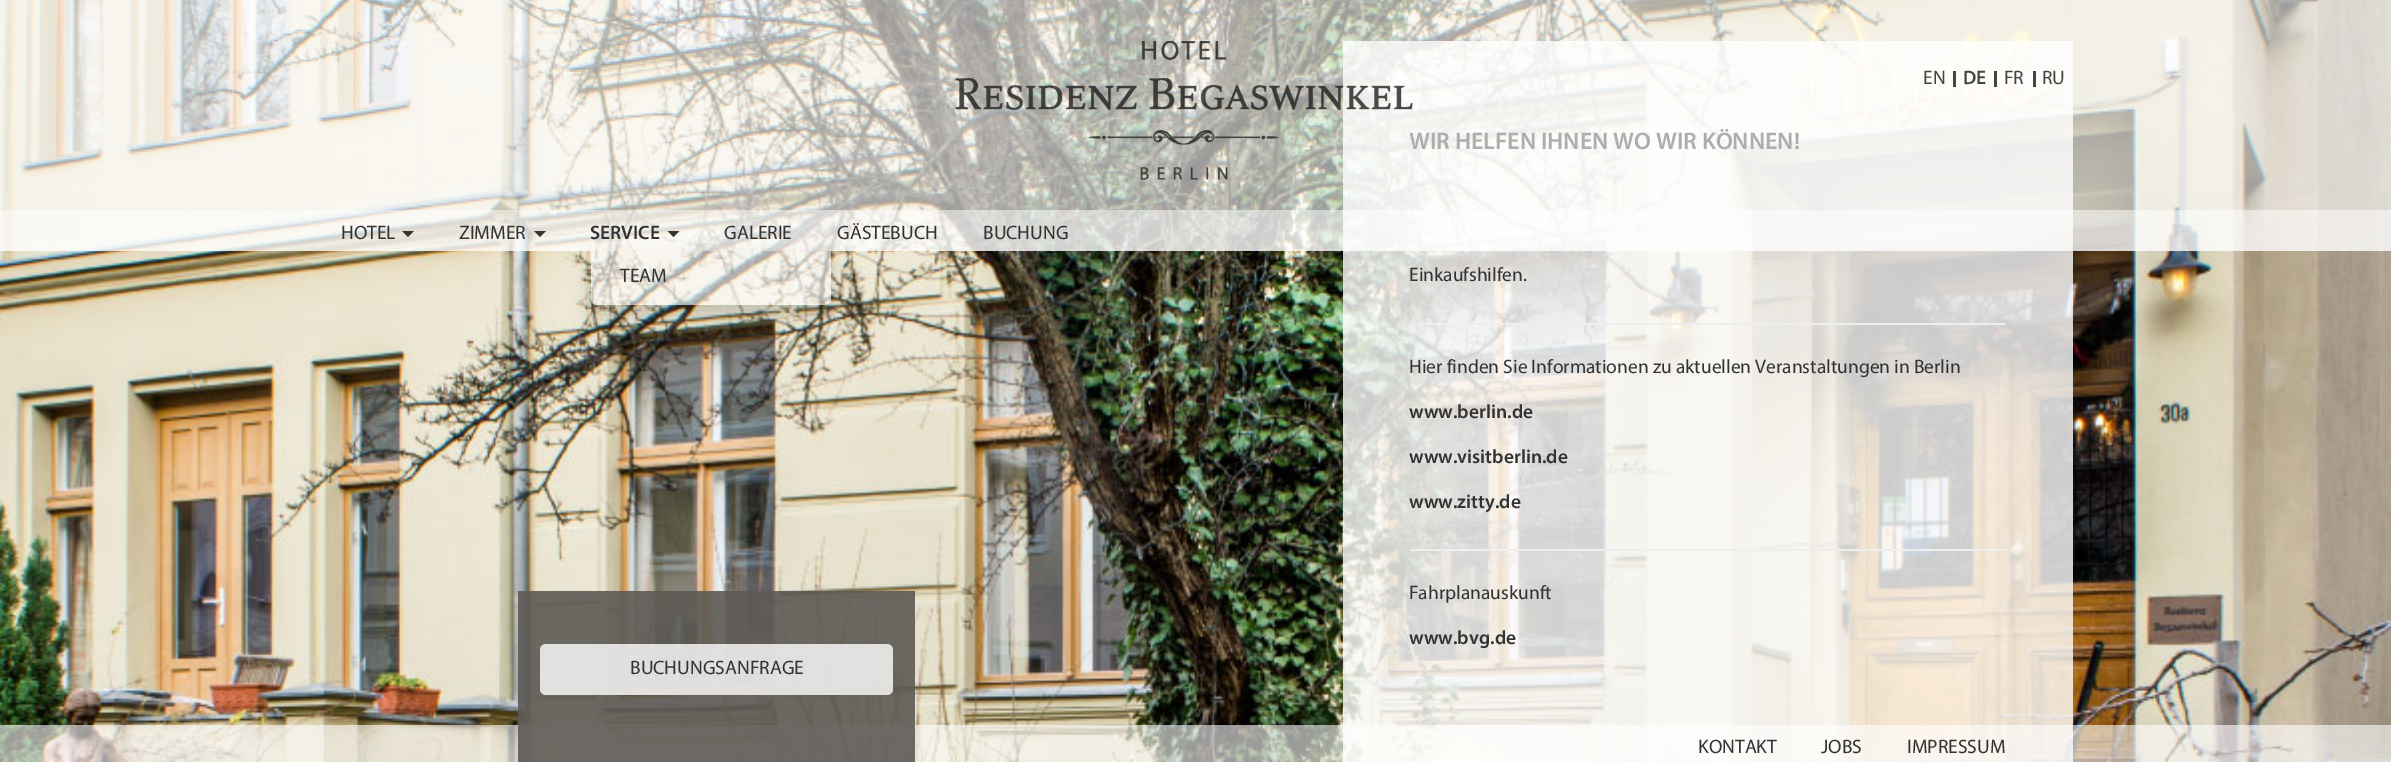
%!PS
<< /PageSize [2391 762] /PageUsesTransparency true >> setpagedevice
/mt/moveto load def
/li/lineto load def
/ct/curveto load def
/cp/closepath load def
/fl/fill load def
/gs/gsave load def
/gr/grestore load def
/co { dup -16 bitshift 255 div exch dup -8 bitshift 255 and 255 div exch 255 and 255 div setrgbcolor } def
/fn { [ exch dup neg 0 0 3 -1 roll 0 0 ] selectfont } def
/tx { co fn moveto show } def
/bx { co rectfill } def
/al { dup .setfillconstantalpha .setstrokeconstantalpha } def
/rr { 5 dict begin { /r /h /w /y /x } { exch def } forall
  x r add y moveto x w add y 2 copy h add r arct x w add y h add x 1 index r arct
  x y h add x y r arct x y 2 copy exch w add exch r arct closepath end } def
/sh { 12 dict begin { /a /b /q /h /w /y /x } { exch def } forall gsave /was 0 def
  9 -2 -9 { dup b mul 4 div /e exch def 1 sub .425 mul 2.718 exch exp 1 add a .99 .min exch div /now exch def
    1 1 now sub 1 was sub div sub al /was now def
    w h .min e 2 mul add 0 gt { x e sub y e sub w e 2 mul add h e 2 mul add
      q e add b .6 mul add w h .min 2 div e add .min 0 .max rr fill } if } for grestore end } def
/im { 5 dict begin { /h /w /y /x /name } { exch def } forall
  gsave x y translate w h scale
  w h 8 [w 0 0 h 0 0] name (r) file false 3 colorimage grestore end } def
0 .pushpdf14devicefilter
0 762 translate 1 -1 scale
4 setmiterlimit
0 0 2391 762 16#FFFFFF bx
(media/1.raw) 0 0 2391 762 im
0.8 al
1343 41 730 721 16#FFFFFF bx
1 al
1410 323 596 2 16#EEEEEE bx
1410 549 596 2 16#EEEEEE bx
0.6 al
0 725 2391 37 16#FFFFFF bx
0.9 al
518 591 397 171 16#5D5A55 bx
0.8 al
16#FFFFFF co
540 644 353 51 6 rr fl
0 210 2391 41 16#FFFFFF bx
1 al
16#333333 co
402 231 mt 414 231 li 408 237 li cp fl
534 231 mt 546 231 li 540 237 li cp fl
667.5 231 mt 679.5 231 li 673.5 237 li cp fl
gs
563 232 mt 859 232 li 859 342 li 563 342 li cp 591 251 mt 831 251 li 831 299 li 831 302.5 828.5 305 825 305 ct 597 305 li 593.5 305 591 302.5 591 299 ct cp eoclip newpath
16#000000 co
591 260 240 54 6 9 .18 sh
gr
0.6 al
16#FFFFFF co
591 251 mt 831 251 li 831 299 li 831 302.5 828.5 305 825 305 ct 597 305 li 593.5 305 591 302.5 591 299 ct cp fl
1 al
(WIR HELFEN IHNEN WO WIR KÖNNEN!) 1409 149 /Myriad-SemiBold 24 16#333333 tx
0.6 al
0 0 2391 210 16#FFFFFF bx
1 al
(RU) 2042 84 /Myriad-Regular 19.5 16#444444 tx
2033 71 3 16 16#444444 bx
(FR) 2004 84 /Myriad-Regular 19.5 16#444444 tx
1994 71 3 16 16#444444 bx
(DE) 1963 84 /Myriad-SemiBold 19.5 16#444444 tx
1953 71 3 16 16#444444 bx
(EN) 1923 84 /Myriad-Regular 19.5 16#444444 tx
(media/2.raw) 955 41 458 139 im
(Einkaufshilfen.) 1409 281 /Myriad-Regular 19.5 16#333333 tx
(Hier finden Sie Informationen zu aktuellen Veranstaltungen in Berlin) 1409 373 /Myriad-Regular 19.5 16#333333 tx
(www.berlin.de) 1409 418 /Myriad-SemiBold 19.5 16#333333 tx
(www.visitberlin.de) 1409 463 /Myriad-SemiBold 19.5 16#333333 tx
(www.zitty.de) 1409 508 /Myriad-SemiBold 19.5 16#333333 tx
(Fahrplanauskunft) 1409 599 /Myriad-Regular 19.5 16#333333 tx
(www.bvg.de) 1409 644 /Myriad-SemiBold 19.5 16#333333 tx
(BUCHUNGSANFRAGE) 630 674 /Myriad-Regular 19.5 16#333333 tx
(HOTEL) 341 239 /Myriad-Regular 19.5 16#333333 tx
(ZIMMER) 459 239 /Myriad-Regular 19.5 16#333333 tx
(SERVICE) 590 239 /Myriad-SemiBold 19.5 16#333333 tx
(TEAM) 620 282 /Myriad-Regular 19.5 16#333333 tx
(GALERIE) 724 239 /Myriad-Regular 19.5 16#333333 tx
(GÄSTEBUCH) 837 239 /Myriad-Regular 19.5 16#333333 tx
(BUCHUNG) 983 239 /Myriad-Regular 19.5 16#333333 tx
(KONTAKT) 1698 753 /Myriad-Regular 19.5 16#333333 tx
(JOBS) 1821 753 /Myriad-Regular 19.5 16#333333 tx
(IMPRESSUM) 1907 753 /Myriad-Regular 19.5 16#333333 tx
.poppdf14devicefilter showpage
